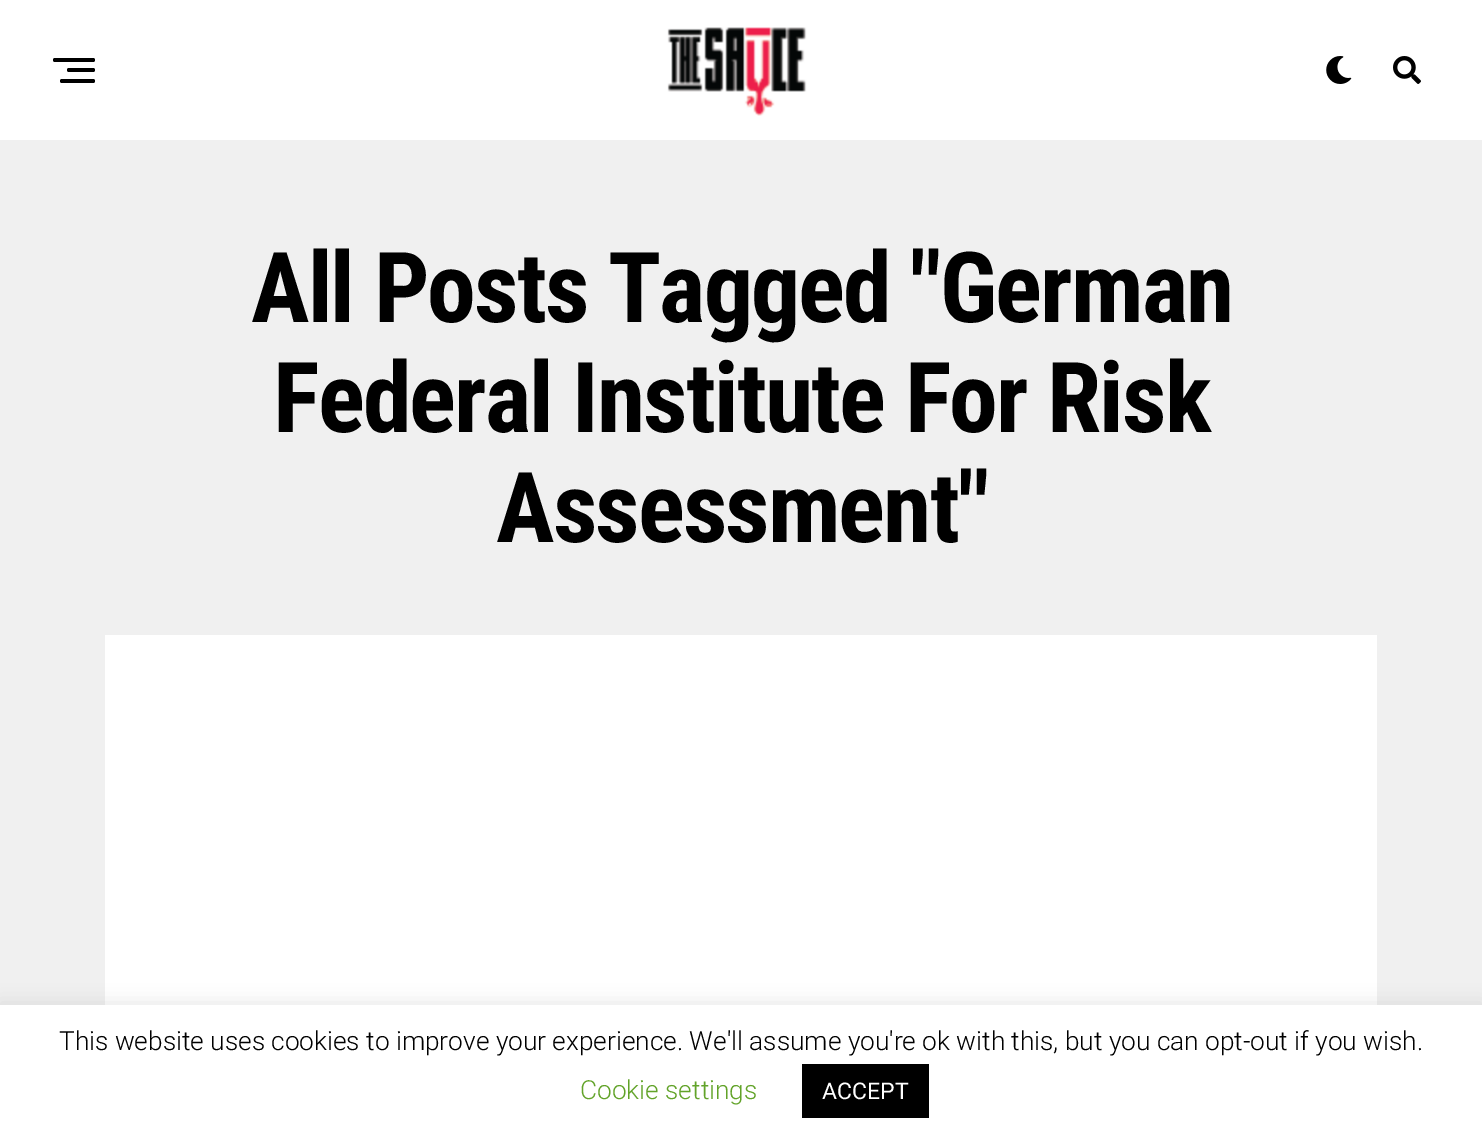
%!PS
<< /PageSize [1482 1147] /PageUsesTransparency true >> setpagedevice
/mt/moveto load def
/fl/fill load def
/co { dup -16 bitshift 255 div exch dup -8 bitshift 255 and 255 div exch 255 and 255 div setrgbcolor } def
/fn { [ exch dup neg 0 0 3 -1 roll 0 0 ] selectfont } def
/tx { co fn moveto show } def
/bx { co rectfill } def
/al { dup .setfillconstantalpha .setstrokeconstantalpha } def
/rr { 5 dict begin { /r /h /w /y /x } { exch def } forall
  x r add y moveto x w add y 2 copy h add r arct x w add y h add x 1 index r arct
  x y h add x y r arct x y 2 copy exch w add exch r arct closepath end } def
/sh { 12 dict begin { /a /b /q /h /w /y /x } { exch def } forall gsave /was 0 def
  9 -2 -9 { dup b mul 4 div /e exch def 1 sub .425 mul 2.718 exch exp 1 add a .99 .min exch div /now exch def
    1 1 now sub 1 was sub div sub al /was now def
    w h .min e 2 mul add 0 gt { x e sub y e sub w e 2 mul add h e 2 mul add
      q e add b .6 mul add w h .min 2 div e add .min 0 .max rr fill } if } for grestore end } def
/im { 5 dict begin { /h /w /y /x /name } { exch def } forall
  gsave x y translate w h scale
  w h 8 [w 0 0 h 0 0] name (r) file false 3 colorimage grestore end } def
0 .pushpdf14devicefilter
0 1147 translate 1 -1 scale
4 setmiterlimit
0 0 1482 1147 16#F0F0F0 bx
0 0 1482 140 16#FFFFFF bx
16#000000 co
53 58 42 4 2 rr fl
67 68 28 4 2 rr fl
60 79 35 4 2 rr fl
(media/1.raw) 667 27 140 89 im
(media/2.raw) 1326 56 26 28 im
(media/3.raw) 1393 56 28 28 im
105 635 1272 370 16#FFFFFF bx
16#ACABAB co
0 1003 1482 143 0 9 .3 sh
0 1005 1482 142 16#FFFFFF bx
802 1064 127 54 16#000000 bx
/RobotoCondensed-Bold 98 fn
251 322 mt -1.95 0 (All Posts Tagged "German) ashow
273 432 mt -1.95 0 (Federal Institute For Risk) ashow
496 542 mt -1.95 0 (Assessment") ashow
(This website uses cookies to improve your experience. We'll assume you're ok with this, but you can opt-out if you wish.) 59 1050 /Roboto-Light 26.25 16#000000 tx
(Cookie settings) 580 1099 /Roboto-Light 26.25 16#62A329 tx
(ACCEPT) 822 1099 /Roboto-Regular 23 16#FFFFFF tx
.poppdf14devicefilter showpage
